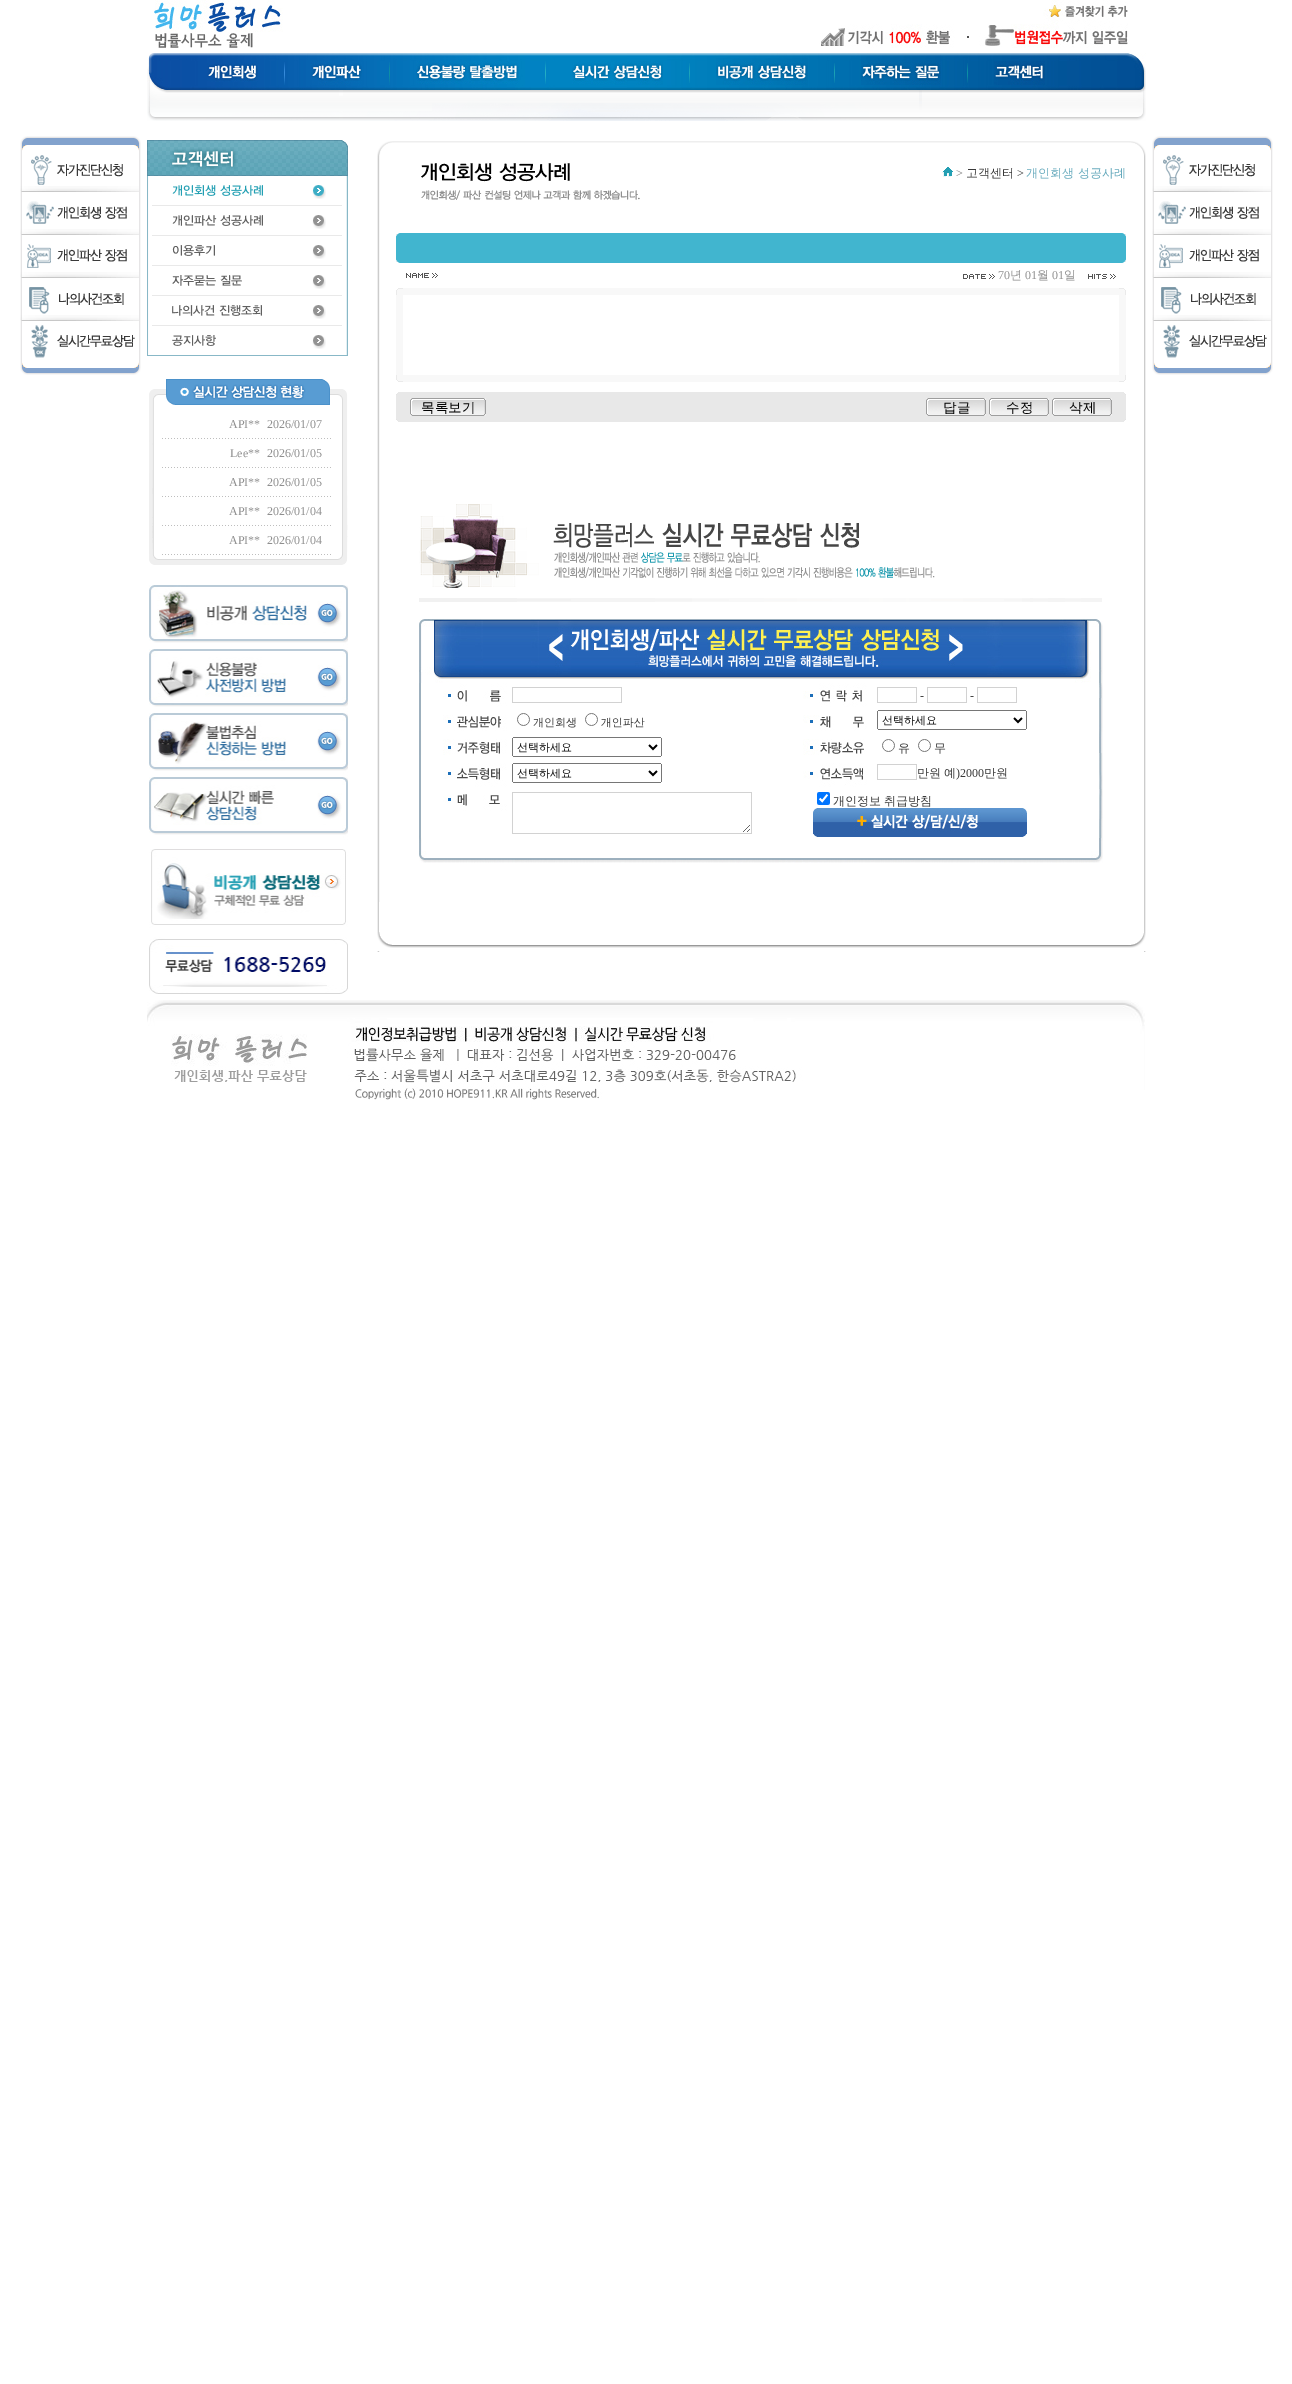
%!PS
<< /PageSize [1292 2384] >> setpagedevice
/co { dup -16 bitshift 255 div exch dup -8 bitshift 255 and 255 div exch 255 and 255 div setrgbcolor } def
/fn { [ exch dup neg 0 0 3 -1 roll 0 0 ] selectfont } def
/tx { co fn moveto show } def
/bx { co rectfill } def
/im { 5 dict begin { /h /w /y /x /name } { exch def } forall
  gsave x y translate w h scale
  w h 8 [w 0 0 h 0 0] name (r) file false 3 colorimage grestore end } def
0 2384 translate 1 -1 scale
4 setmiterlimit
0 0 1292 2384 16#FFFFFF bx
(media/1.raw) 20 136 121 56 im
(media/2.raw) 20 192 121 43 im
(media/3.raw) 20 235 121 43 im
(media/4.raw) 20 278 121 43 im
(media/5.raw) 20 321 121 54 im
(media/6.raw) 154 0 974 48 im
(media/7.raw) 147 53 999 37 im
(media/8.raw) 207 63 51 19 im
(media/9.raw) 284 62 1 23 im
(media/10.raw) 311 61 51 24 im
(media/11.raw) 389 62 1 23 im
(media/12.raw) 416 61 103 23 im
(media/13.raw) 545 61 1 23 im
(media/14.raw) 572 61 91 24 im
(media/15.raw) 689 63 1 20 im
(media/16.raw) 716 58 92 27 im
(media/17.raw) 834 63 1 20 im
(media/18.raw) 861 54 80 31 im
(media/19.raw) 967 63 1 20 im
(media/20.raw) 994 61 51 24 im
(media/21.raw) 147 90 999 31 im
(media/22.raw) 377 141 769 65 im
(media/23.raw) 421 163 149 19 im
(media/24.raw) 942 167 11 10 im
(media/25.raw) 377 206 769 226 im
400 233 722 30 16#41B5CF bx
(media/26.raw) 396 233 4 30 im
(media/27.raw) 1122 233 4 30 im
(media/28.raw) 406 273 32 5 im
(media/29.raw) 963 274 32 5 im
(media/30.raw) 1088 274 28 5 im
(media/31.raw) 396 288 7 7 im
403 288 716 7 16#F8F8F8 bx
(media/32.raw) 1119 288 7 7 im
396 295 7 80 16#F8F8F8 bx
1119 295 7 80 16#F8F8F8 bx
(media/33.raw) 396 375 7 7 im
403 375 716 7 16#F8F8F8 bx
(media/34.raw) 1119 375 7 7 im
398 392 726 30 16#E8E8E8 bx
(media/35.raw) 396 392 2 30 im
410 398 76 18 16#EFEFEF bx
(media/36.raw) 410 398 76 18 im
926 398 60 18 16#EFEFEF bx
(media/37.raw) 926 398 60 18 im
989 398 60 18 16#EFEFEF bx
(media/37.raw) 989 398 60 18 im
1052 398 60 18 16#EFEFEF bx
(media/37.raw) 1052 398 60 18 im
(media/38.raw) 1124 392 2 30 im
(media/39.raw) 377 432 769 50 im
(media/40.raw) 377 482 769 420 im
(media/41.raw) 419 504 684 359 im
(media/42.raw) 377 951 769 1 im
(media/43.raw) 377 902 769 49 im
(media/44.raw) 147 176 201 179 im
(media/45.raw) 147 140 201 36 im
(media/46.raw) 172 185 154 14 im
152 205 190 1 16#E9E9E9 bx
(media/47.raw) 172 215 154 14 im
152 235 190 1 16#E9E9E9 bx
(media/48.raw) 172 245 154 14 im
152 265 190 1 16#E9E9E9 bx
(media/49.raw) 172 275 154 14 im
152 295 190 1 16#E9E9E9 bx
(media/50.raw) 172 305 154 14 im
152 325 190 1 16#E9E9E9 bx
(media/51.raw) 172 335 154 14 im
147 355 201 1 16#88B8C7 bx
(media/52.raw) 149 379 199 186 im
(media/53.raw) 162 438 169 1 im
(media/53.raw) 162 467 169 1 im
(media/53.raw) 162 496 169 1 im
(media/53.raw) 162 525 169 1 im
(media/53.raw) 162 554 169 1 im
(media/54.raw) 149 585 199 409 im
(media/55.raw) 147 1000 998 100 im
(media/1.raw) 1152 136 121 56 im
(media/2.raw) 1152 192 121 43 im
(media/3.raw) 1152 235 121 43 im
(media/4.raw) 1152 278 121 43 im
(media/5.raw) 1152 321 121 54 im
(>) 956 177 /LiberationSerif-Regular 12 16#808080 tx
(고객센터) 966 177 /WenQuanYiZenHei-Medium 12 16#393939 tx
(>) 1017 177 /LiberationSerif-Regular 12 16#393939 tx
(개인회생 성공사례) 1026 177 /WenQuanYiZenHei-Medium 12 16#66AABD tx
(70) 998 279 /LiberationSerif-Regular 12 16#8F8F8F tx
(년) 1010 279 /WenQuanYiZenHei-Medium 12 16#8F8F8F tx
(01) 1025 279 /LiberationSerif-Regular 12 16#8F8F8F tx
(월) 1037 279 /WenQuanYiZenHei-Medium 12 16#8F8F8F tx
(01) 1052 279 /LiberationSerif-Regular 12 16#8F8F8F tx
(일) 1064 279 /WenQuanYiZenHei-Medium 12 16#8F8F8F tx
(목록보기) 421 412 /WenQuanYiZenHei-Medium 13.5 16#000000 tx
(답글) 943 412 /WenQuanYiZenHei-Medium 13.5 16#000000 tx
(수정) 1006 412 /WenQuanYiZenHei-Medium 13.5 16#000000 tx
(삭제) 1069 412 /WenQuanYiZenHei-Medium 13.5 16#000000 tx
(API**) 229 428 /LiberationSerif-Regular 12 16#8F8F8F tx
(2026/01/07) 267 428 /LiberationSerif-Regular 12 16#8F8F8F tx
(Lee**) 230 457 /LiberationSerif-Regular 12 16#8F8F8F tx
(2026/01/05) 267 457 /LiberationSerif-Regular 12 16#8F8F8F tx
(API**) 229 486 /LiberationSerif-Regular 12 16#8F8F8F tx
(2026/01/05) 267 486 /LiberationSerif-Regular 12 16#8F8F8F tx
(API**) 229 515 /LiberationSerif-Regular 12 16#8F8F8F tx
(2026/01/04) 267 515 /LiberationSerif-Regular 12 16#8F8F8F tx
(API**) 229 544 /LiberationSerif-Regular 12 16#8F8F8F tx
(2026/01/04) 267 544 /LiberationSerif-Regular 12 16#8F8F8F tx
showpage
